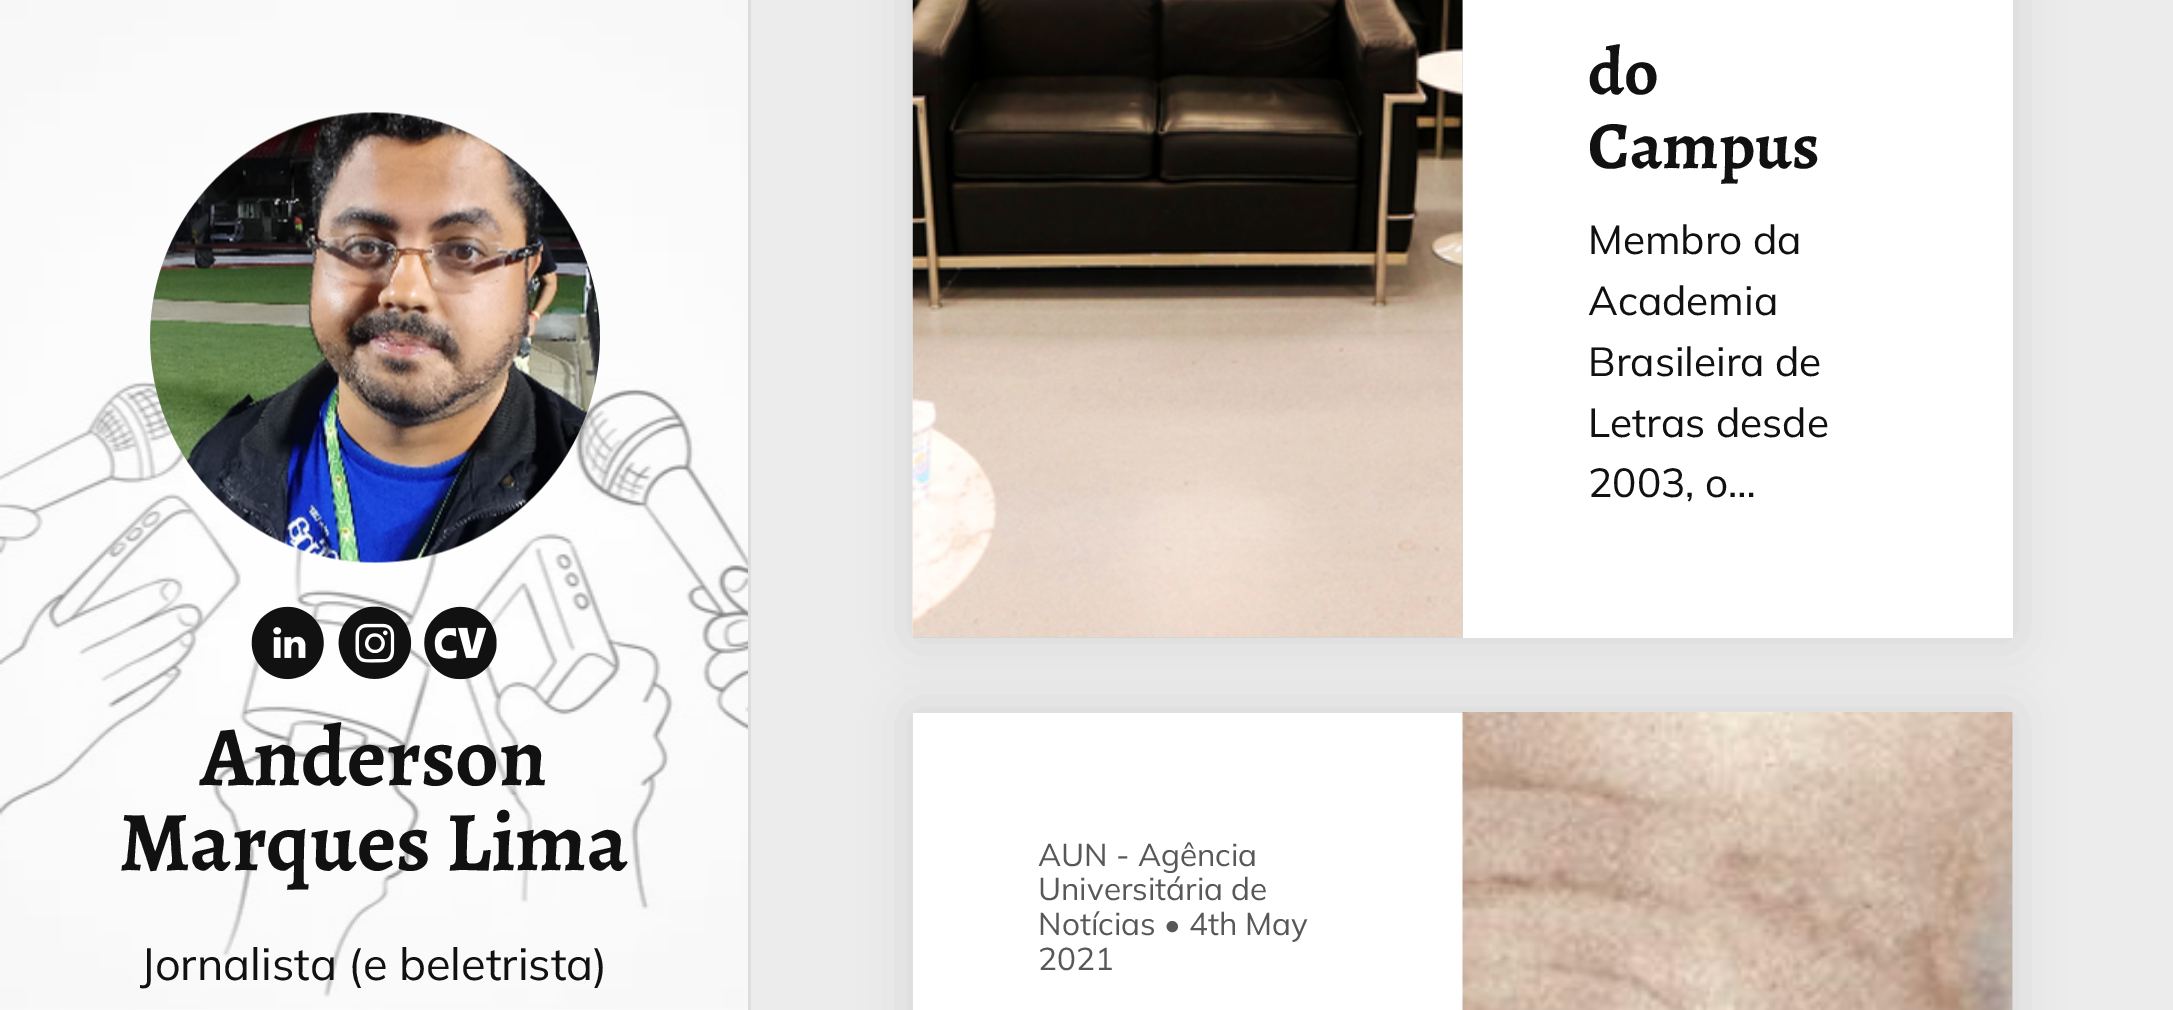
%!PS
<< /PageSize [2173 1010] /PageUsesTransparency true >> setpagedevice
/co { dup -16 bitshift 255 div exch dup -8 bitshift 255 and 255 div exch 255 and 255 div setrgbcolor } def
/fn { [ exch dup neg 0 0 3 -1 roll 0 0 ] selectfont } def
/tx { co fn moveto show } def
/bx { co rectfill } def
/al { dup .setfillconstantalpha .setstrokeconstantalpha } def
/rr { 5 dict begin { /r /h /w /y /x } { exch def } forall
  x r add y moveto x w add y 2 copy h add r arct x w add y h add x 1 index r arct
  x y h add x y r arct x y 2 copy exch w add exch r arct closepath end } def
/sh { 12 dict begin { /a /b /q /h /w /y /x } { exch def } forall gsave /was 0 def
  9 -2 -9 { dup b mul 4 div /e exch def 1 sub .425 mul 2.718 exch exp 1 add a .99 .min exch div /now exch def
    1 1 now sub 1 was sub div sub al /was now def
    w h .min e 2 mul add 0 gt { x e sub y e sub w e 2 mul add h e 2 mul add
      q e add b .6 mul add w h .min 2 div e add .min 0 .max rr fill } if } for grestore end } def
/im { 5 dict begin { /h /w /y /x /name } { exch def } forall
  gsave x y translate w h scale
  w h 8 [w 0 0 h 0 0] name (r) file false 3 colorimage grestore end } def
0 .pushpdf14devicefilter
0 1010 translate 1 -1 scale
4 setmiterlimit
0 0 2173 1010 16#FFFFFF bx
(media/1.raw) 0 0 748 1010 im
748 0 3 1010 16#DDDDDD bx
(media/2.raw) 150 112 450 451 im
(media/3.raw) 251 606 73 74 im
(media/4.raw) 338 606 74 73 im
(media/5.raw) 424 606 73 74 im
751 0 1422 1010 16#ECECEC bx
16#000000 co
913 -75 1100 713 0 25 .1 sh
913 0 550 638 16#D5D5D5 bx
(media/6.raw) 912 0 551 637 im
1463 0 550 638 16#FFFFFF bx
16#000000 co
913 713 1100 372 0 25 .1 sh
913 713 550 297 16#FFFFFF bx
2012 713 1 297 16#D5D5D5 bx
(media/7.raw) 1462 712 551 298 im
(Anderson) 200 785 /Alegreya-Bold 85 16#111111 tx
(Marques Lima) 119 870 /Alegreya-Bold 85 16#111111 tx
(Jornalista \(e beletrista\)) 140 980 /Mulish-ExtraLight 45 16#111111 tx
(do) 1588 94 /Alegreya-Bold 67.5 16#111111 tx
(Campus) 1588 168 /Alegreya-Bold 67.5 16#111111 tx
(Membro da) 1588 254 /Mulish-ExtraLight 40.5 16#111111 tx
(Academia) 1588 315 /Mulish-ExtraLight 40.5 16#111111 tx
(Brasileira de) 1588 376 /Mulish-ExtraLight 40.5 16#111111 tx
(Letras desde) 1588 437 /Mulish-ExtraLight 40.5 16#111111 tx
(2003, o…) 1588 497 /Mulish-ExtraLight 40.5 16#111111 tx
(AUN - Agência) 1038 866 /Mulish-ExtraLight 31.5 16#585858 tx
(Universitária de) 1038 900 /Mulish-ExtraLight 31.5 16#585858 tx
(Notícias • 4th May) 1038 935 /Mulish-ExtraLight 31.5 16#585858 tx
(2021) 1038 970 /Mulish-ExtraLight 31.5 16#585858 tx
.poppdf14devicefilter showpage
